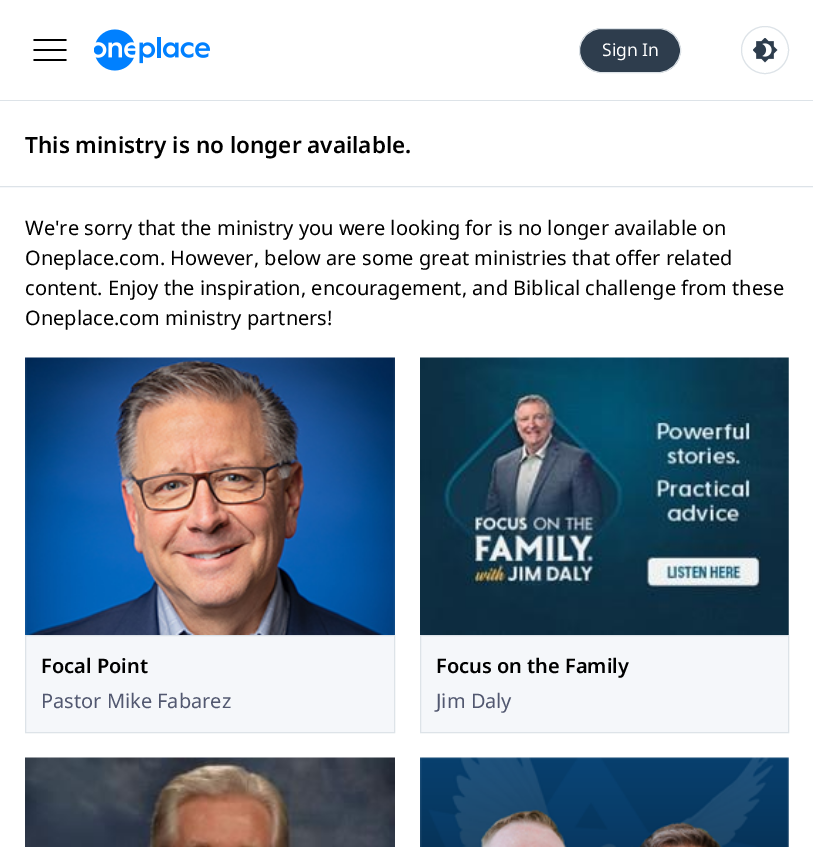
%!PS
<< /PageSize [813 847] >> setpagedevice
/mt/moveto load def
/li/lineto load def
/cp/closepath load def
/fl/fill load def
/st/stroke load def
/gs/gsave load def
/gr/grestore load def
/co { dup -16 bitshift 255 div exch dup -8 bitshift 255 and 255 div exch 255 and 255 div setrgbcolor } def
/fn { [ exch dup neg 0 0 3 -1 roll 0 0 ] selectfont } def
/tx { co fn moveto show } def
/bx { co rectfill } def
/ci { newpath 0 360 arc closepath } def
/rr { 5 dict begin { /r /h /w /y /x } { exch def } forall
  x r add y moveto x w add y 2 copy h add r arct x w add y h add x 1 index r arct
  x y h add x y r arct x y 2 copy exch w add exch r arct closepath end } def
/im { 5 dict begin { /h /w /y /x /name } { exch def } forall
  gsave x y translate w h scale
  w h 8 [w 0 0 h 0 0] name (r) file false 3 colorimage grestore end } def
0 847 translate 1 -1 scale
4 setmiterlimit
0 0 813 847 16#FFFFFF bx
0 100 813 1 16#DDE3E8 bx
16#000000 co
33.5 61 mt 33.5 59 li 66.5 59 li 66.5 61 li cp 33.5 51 mt 33.5 49 li 66.5 49 li 66.5 51 li cp 33.5 41 mt 33.5 39 li 66.5 39 li 66.5 41 li cp fl
(media/1.raw) 94 29 116 42 im
16#2E3D4D co
579.5 28.5 101 44 22 rr gs fl gr
16#DDE3E8 co
st
765 50 23.5 ci st
(media/2.raw) 753 38 25 25 im
0 187 813 1 16#F5F7FA bx
0 186 813 1 16#DDE3E8 bx
(media/3.raw) 25 357 370 278 im
16#F5F7FA co
25.5 635.5 mt 394.5 635.5 li 394.5 732.5 li 25.5 732.5 li cp gs fl gr
16#DDE3E8 co
st
(media/4.raw) 420 357 369 278 im
16#F5F7FA co
420.5 635.5 mt 788.5 635.5 li 788.5 732.5 li 420.5 732.5 li cp gs fl gr
16#DDE3E8 co
st
(media/5.raw) 25 757 370 90 im
(media/6.raw) 420 757 369 90 im
(Sign In) 602 56 /NotoSans-Regular 17.5 16#FFFFFF tx
(This ministry is no longer available.) 25 153 /NotoSans-SemiBold 22.5 16#000000 tx
(We're sorry that the ministry you were looking for is no longer available on) 25 235 /NotoSans-Regular 20 16#000000 tx
(Oneplace.com. However, below are some great ministries that offer related) 25 265 /NotoSans-Regular 20 16#000000 tx
(content. Enjoy the inspiration, encouragement, and Biblical challenge from these) 25 295 /NotoSans-Regular 20 16#000000 tx
(Oneplace.com ministry partners!) 25 325 /NotoSans-Regular 20 16#000000 tx
(Focal Point) 41 673 /NotoSans-SemiBold 20 16#000000 tx
(Pastor Mike Fabarez) 41 708 /NotoSans-Regular 20 16#525870 tx
(Focus on the Family) 436 673 /NotoSans-SemiBold 20 16#000000 tx
(Jim Daly) 436 708 /NotoSans-Regular 20 16#525870 tx
showpage
